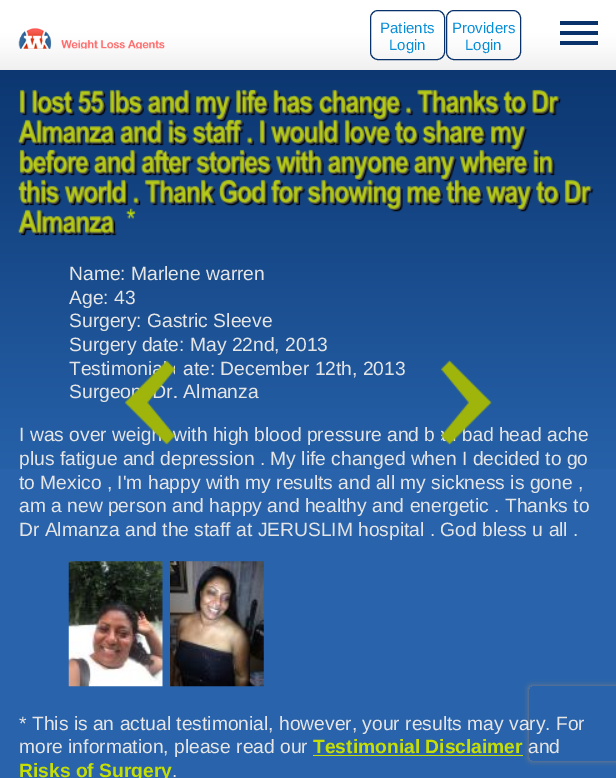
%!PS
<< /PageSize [616 778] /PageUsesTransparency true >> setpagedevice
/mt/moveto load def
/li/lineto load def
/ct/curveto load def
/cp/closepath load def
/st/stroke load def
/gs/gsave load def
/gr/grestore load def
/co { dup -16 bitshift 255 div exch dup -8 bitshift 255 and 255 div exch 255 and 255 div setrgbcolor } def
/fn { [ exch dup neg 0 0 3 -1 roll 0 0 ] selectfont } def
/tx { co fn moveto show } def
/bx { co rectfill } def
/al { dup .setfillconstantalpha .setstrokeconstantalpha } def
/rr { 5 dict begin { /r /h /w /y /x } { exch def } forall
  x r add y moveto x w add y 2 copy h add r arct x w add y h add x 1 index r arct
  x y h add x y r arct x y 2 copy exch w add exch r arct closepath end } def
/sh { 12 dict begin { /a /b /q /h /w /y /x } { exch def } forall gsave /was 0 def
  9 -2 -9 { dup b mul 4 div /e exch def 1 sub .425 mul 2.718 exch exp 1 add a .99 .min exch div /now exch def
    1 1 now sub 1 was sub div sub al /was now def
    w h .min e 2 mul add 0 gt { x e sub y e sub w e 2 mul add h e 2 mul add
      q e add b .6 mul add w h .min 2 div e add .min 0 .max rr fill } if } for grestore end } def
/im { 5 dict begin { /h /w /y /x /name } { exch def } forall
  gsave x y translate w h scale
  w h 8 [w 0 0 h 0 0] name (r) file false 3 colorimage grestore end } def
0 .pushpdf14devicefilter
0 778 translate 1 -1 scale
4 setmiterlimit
0 0 616 778 16#2863AC bx
(media/1.raw) 0 0 616 70 im
(media/2.raw) 18 27 147 22 im
560 21 38 4 16#09326B bx
560 31 38 4 16#09326B bx
560 41 38 4 16#09326B bx
370.5 10.5 74 49 7.5 rr st
446.5 10.5 74 49 7.5 rr st
(media/3.raw) 0 70 616 399 im
(media/4.raw) 19 89 9 27 im
(media/5.raw) 32 89 43 28 im
(media/6.raw) 77 90 30 27 im
(media/7.raw) 109 89 35 28 im
(media/8.raw) 147 89 45 27 im
(media/9.raw) 196 96 37 26 im
(media/10.raw) 236 89 33 28 im
(media/11.raw) 273 89 43 28 im
(media/12.raw) 318 89 85 33 im
(media/13.raw) 406 107 8 9 im
(media/14.raw) 417 89 84 28 im
(media/15.raw) 503 90 25 27 im
(media/16.raw) 532 89 30 27 im
(media/17.raw) 18 119 99 27 im
(media/18.raw) 120 119 44 27 im
(media/19.raw) 168 119 21 28 im
(media/20.raw) 192 119 52 28 im
(media/21.raw) 247 137 8 9 im
(media/22.raw) 259 119 9 27 im
(media/23.raw) 271 119 70 28 im
(media/24.raw) 344 119 49 28 im
(media/25.raw) 394 120 25 27 im
(media/26.raw) 422 119 65 28 im
(media/27.raw) 491 126 37 26 im
(media/28.raw) 19 149 73 28 im
(media/29.raw) 93 149 45 27 im
(media/30.raw) 141 149 53 28 im
(media/31.raw) 196 149 77 28 im
(media/32.raw) 276 149 48 28 im
(media/33.raw) 327 155 85 27 im
(media/34.raw) 413 155 44 27 im
(media/35.raw) 459 149 70 28 im
(media/36.raw) 533 149 23 27 im
(media/37.raw) 18 179 44 28 im
(media/38.raw) 64 179 65 28 im
(media/39.raw) 133 197 8 9 im
(media/40.raw) 144 179 73 27 im
(media/41.raw) 218 179 50 28 im
(media/42.raw) 271 179 35 28 im
(media/43.raw) 307 179 96 33 im
(media/44.raw) 407 186 36 21 im
(media/45.raw) 446 179 38 28 im
(media/46.raw) 486 185 48 27 im
(media/47.raw) 536 181 25 26 im
(media/48.raw) 564 179 30 27 im
(media/49.raw) 18 209 99 27 im
(media/50.raw) 126 208 10 11 im
(media/51.raw) 68 561 95 126 im
(media/52.raw) 170 561 94 126 im
313 755 210 1 16#C6DE03 bx
gs
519 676 mt 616 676 li 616 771 li 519 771 li cp 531.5 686 mt 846.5 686 li 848 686 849 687 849 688.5 ct 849 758.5 li 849 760 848 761 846.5 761 ct 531.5 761 li 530 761 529 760 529 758.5 ct 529 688.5 li 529 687 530 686 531.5 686 ct cp eoclip newpath
16#808080 co
529 686 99 75 2.5 3 1 sh
gr
(Patients) 380 33 /LiberationSans-Regular 15 16#088ED7 tx
(Login) 389 50 /LiberationSans-Regular 15 16#088ED7 tx
(Providers) 452 33 /LiberationSans-Regular 15 16#088ED7 tx
(Login) 465 50 /LiberationSans-Regular 15 16#088ED7 tx
(Name: Marlene warren) 69 280 /LiberationSans-Regular 19.25 16#E5E5E5 tx
(Age: 43) 69 304 /LiberationSans-Regular 19.25 16#E5E5E5 tx
(Surgery: Gastric Sleeve) 69 327 /LiberationSans-Regular 19.25 16#E5E5E5 tx
(Surgery date: May 22nd, 2013) 69 351 /LiberationSans-Regular 19.25 16#E5E5E5 tx
(Testimoni) 69 375 /LiberationSans-Regular 19.25 16#E5E5E5 tx
(ate: December 12th, 2013) 183 375 /LiberationSans-Regular 19.25 16#E5E5E5 tx
(Surgeon: Dr. Almanza) 69 398 /LiberationSans-Regular 19.25 16#E5E5E5 tx
(I was over weig) 19 441 /LiberationSans-Regular 19.25 16#E5E5E5 tx
(with high blood pressure and b) 173 441 /LiberationSans-Regular 19.25 16#E5E5E5 tx
(ad head ache) 472 441 /LiberationSans-Regular 19.25 16#E5E5E5 tx
(plus fatigue and depression . My life changed when I decided to go) 19 465 /LiberationSans-Regular 19.25 16#E5E5E5 tx
(to Mexico , I'm happy with my results and all my sickness is gone ,) 19 489 /LiberationSans-Regular 19.25 16#E5E5E5 tx
(am a new person and happy and healthy and energetic . Thanks to) 19 512 /LiberationSans-Regular 19.25 16#E5E5E5 tx
(Dr Almanza and the staff at JERUSLIM hospital . God bless u all .) 19 536 /LiberationSans-Regular 19.25 16#E5E5E5 tx
(* This is an actual testimonial, however, your results may vary. For) 19 730 /LiberationSans-Regular 19.25 16#E5E5E5 tx
(more information, please read our) 19 753 /LiberationSans-Regular 19.25 16#E5E5E5 tx
(Testimonial Disclaimer) 313 753 /LiberationSans-Bold 19.25 16#C6DE03 tx
(and) 528 753 /LiberationSans-Regular 19.25 16#E5E5E5 tx
(Risks of Surgery) 19 777 /LiberationSans-Bold 19.25 16#C6DE03 tx
(.) 172 777 /LiberationSans-Regular 19.25 16#E5E5E5 tx
(media/53.raw) 125 360 50 85 im
(media/54.raw) 441 360 51 85 im
.poppdf14devicefilter showpage
